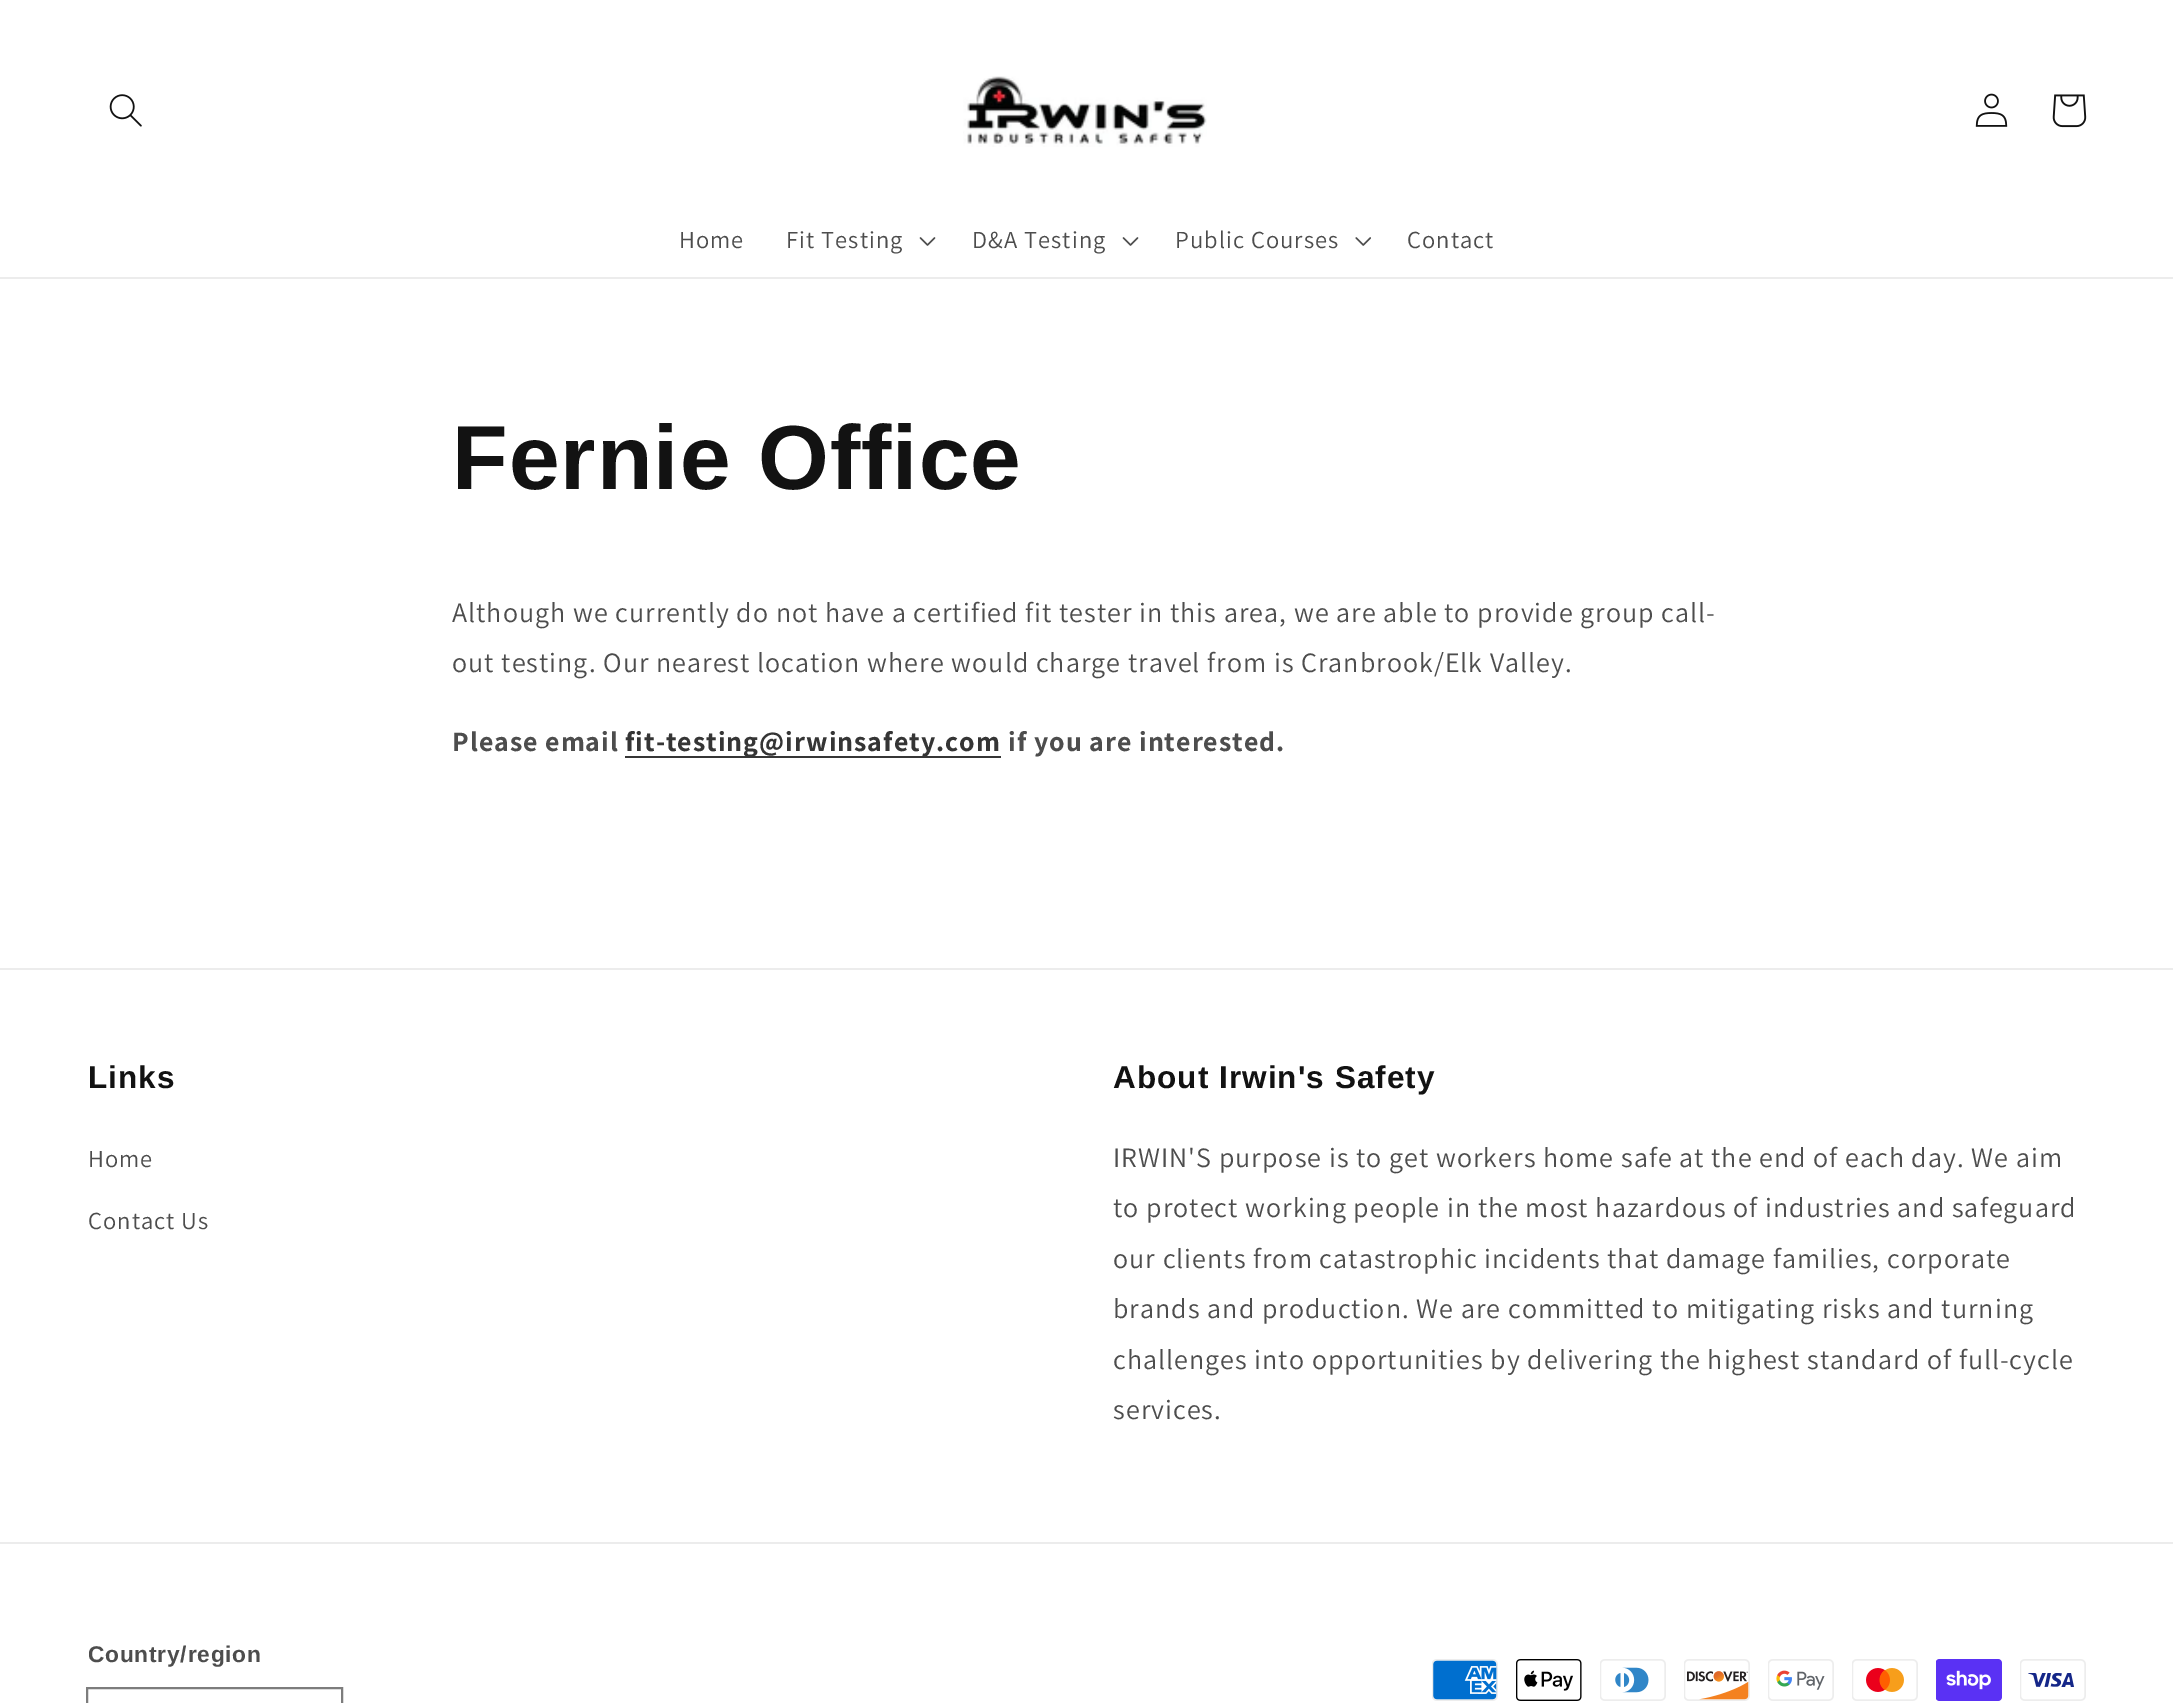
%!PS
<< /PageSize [2173 1703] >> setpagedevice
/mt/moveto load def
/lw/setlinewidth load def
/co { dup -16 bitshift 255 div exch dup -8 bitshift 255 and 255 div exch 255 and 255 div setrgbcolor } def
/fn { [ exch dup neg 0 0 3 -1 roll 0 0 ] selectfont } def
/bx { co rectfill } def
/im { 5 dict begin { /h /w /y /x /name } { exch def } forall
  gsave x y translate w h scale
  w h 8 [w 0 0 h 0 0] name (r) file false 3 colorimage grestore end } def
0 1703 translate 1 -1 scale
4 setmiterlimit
0 0 2173 1703 16#FFFFFF bx
0 277 2173 2 16#ECECEC bx
(media/1.raw) 109 94 33 33 im
(media/2.raw) 963 76 244 71 im
(media/3.raw) 1975 93 33 34 im
(media/4.raw) 2052 94 35 34 im
(media/5.raw) 919 237 17 9 im
(media/5.raw) 1122 237 17 9 im
(media/6.raw) 1355 237 16 9 im
625 756 376 2 16#363636 bx
0 968 2173 2 16#ECECEC bx
0 1542 2173 2 16#ECECEC bx
16#7D7D7D co
2 lw
87 1688 255 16 rectstroke
(media/7.raw) 1432 1659 66 42 im
(media/8.raw) 1516 1659 66 42 im
(media/9.raw) 1600 1659 66 42 im
(media/10.raw) 1684 1659 66 42 im
(media/11.raw) 1768 1659 66 42 im
(media/12.raw) 1852 1659 66 42 im
(media/13.raw) 1936 1659 66 42 im
(media/14.raw) 2020 1659 66 42 im
/Assistant-Regular 24.5 fn
16#4D4D4D co
679 248 mt 1.05 0 (Home) ashow
786 248 mt 1.05 0 (Fit Testing) ashow
972 248 mt 1.05 0 (D&A Testing) ashow
1175 248 mt 1.05 0 (Public Courses) ashow
1407 248 mt 1.05 0 (Contact) ashow
/LiberationSans-Bold 91 fn
16#121212 co
452 489 mt 1.05 0 (Fernie Office) ashow
/Assistant-Regular 28 fn
16#4D4D4D co
452 622 mt 1.05 0 (Although we currently do not have a certified fit tester in this area, we are able to provide group call-) ashow
452 672 mt 1.05 0 (out testing. Our nearest location where would charge travel from is Cranbrook/Elk Valley.) ashow
/Assistant-Bold 28 fn
452 751 mt 1.05 0 (Please email) ashow
16#353535 co
625 751 mt 1.05 0 (fit-testing@irwinsafety.com) ashow
16#4D4D4D co
1008 751 mt 1.05 0 (if you are interested.) ashow
/LiberationSans-Bold 31.5 fn
16#121212 co
88 1088 mt 1.05 0 (Links) ashow
/Assistant-Regular 24.5 fn
16#4D4D4D co
88 1167 mt 1.05 0 (Home) ashow
88 1229 mt 1.05 0 (Contact Us) ashow
/LiberationSans-Bold 31.5 fn
16#121212 co
1113 1088 mt 1.05 0 (About Irwin's Safety) ashow
/Assistant-Regular 28 fn
16#4D4D4D co
1113 1167 mt 1.05 0 (IRWIN'S purpose is to get workers home safe at the end of each day. We aim) ashow
1113 1217 mt 1.05 0 (to protect working people in the most hazardous of industries and safeguard) ashow
1113 1268 mt 1.05 0 (our clients from catastrophic incidents that damage families, corporate) ashow
1113 1318 mt 1.05 0 (brands and production. We are committed to mitigating risks and turning) ashow
1113 1369 mt 1.05 0 (challenges into opportunities by delivering the highest standard of full-cycle) ashow
1113 1419 mt 1.05 0 (services.) ashow
/LiberationSans-Bold 22.75 fn
88 1662 mt .75 0 (Country/region) ashow
showpage
